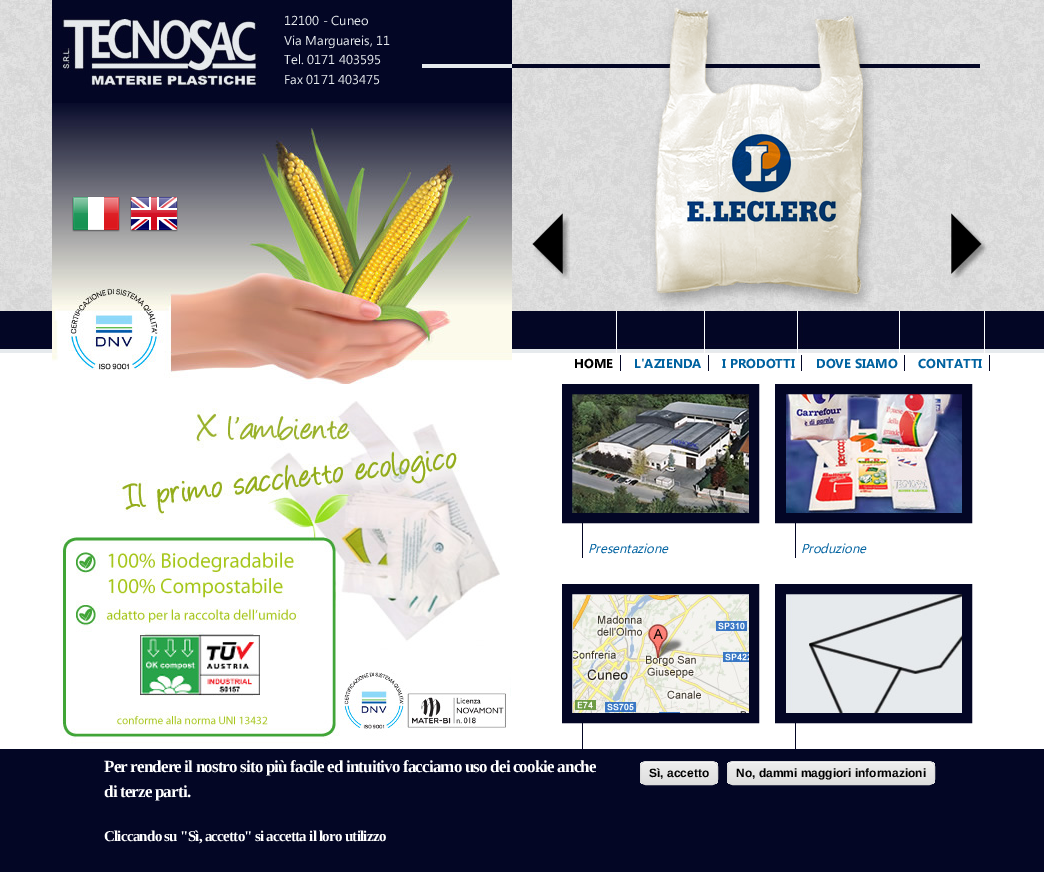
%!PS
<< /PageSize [1044 872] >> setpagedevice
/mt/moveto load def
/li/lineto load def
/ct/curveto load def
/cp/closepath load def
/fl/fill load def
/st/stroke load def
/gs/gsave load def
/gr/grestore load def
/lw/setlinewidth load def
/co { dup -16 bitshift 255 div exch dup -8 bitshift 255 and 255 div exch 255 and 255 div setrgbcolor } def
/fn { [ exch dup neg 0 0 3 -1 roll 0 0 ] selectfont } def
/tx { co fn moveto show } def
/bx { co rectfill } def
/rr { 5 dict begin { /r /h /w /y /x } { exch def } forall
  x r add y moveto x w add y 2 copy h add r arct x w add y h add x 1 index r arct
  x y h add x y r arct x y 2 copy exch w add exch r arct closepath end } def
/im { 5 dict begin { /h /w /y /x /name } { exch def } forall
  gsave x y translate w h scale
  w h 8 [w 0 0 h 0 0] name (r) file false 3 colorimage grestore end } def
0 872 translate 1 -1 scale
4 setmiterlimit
0 0 1044 872 16#FFFFFF bx
(media/1.raw) 0 0 1044 311 im
(media/2.raw) 512 64 468 4 im
52 0 460 103 16#030625 bx
(media/3.raw) 52 103 460 24 im
(media/4.raw) 60 16 200 72 im
422 64 90 4 16#E6EAED bx
(media/5.raw) 52 127 460 184 im
(media/6.raw) 72 196 48 36 im
(media/7.raw) 130 196 48 36 im
(media/8.raw) 650 7 224 300 im
(media/9.raw) 684 133 154 91 im
(media/10.raw) 532 213 38 66 im
(media/11.raw) 951 213 36 66 im
(media/12.raw) 0 311 1044 42 im
(media/13.raw) 52 311 460 43 im
(media/14.raw) 612 311 375 42 im
(media/15.raw) 52 354 460 30 im
620 355 1 16 16#030625 bx
708 355 1 16 16#030625 bx
801 355 1 16 16#030625 bx
904 355 1 16 16#030625 bx
989 355 1 16 16#030625 bx
(media/16.raw) 60 401 451 343 im
(media/17.raw) 572 394 177 119 im
10 lw
567 389 187 129 rectstroke
582 523 1 35 16#030625 bx
(media/18.raw) 785 394 177 119 im
780 389 187 129 rectstroke
795 523 1 35 16#030625 bx
(media/19.raw) 572 594 177 119 im
567 589 187 129 rectstroke
582 723 1 34 16#030625 bx
(media/20.raw) 785 594 177 119 im
780 589 187 129 rectstroke
795 723 1 34 16#030625 bx
0 749 1044 123 16#030625 bx
gs
640 761 78 24 6 rr clip newpath
gs 640 762 mt 718 762 li 718 784 li 640 784 li cp clip newpath
<< /ShadingType 2 /ColorSpace /DeviceRGB /Coords [641 762 641 784] /Extend [true true] /Function << /FunctionType 3 /Domain [0 1] /Functions [<< /FunctionType 2 /Domain [0 1] /C0 [.929 .929 .929] /C1 [.929 .929 .929] /N 1 >> << /FunctionType 2 /Domain [0 1] /C0 [.929 .929 .929] /C1 [.875 .875 .875] /N 1 >>] /Bounds [.05] /Encode [0 1 0 1] >> >> shfill gr
gr
16#FFFFFF co
646 763 mt 712 763 li 715 763 717 765 717 768 ct 717 759 707 762 701 762 ct 657 762 li 651 762 641 759 641 768 ct 641 765 643 763 646 763 ct cp fl
16#DCDCDC co
1 lw
640.5 761.5 77 23 5.5 rr st
gs
727 761 208 24 6 rr clip newpath
gs 727 762 mt 935 762 li 935 784 li 727 784 li cp clip newpath
<< /ShadingType 2 /ColorSpace /DeviceRGB /Coords [728 762 728 784] /Extend [true true] /Function << /FunctionType 3 /Domain [0 1] /Functions [<< /FunctionType 2 /Domain [0 1] /C0 [.929 .929 .929] /C1 [.929 .929 .929] /N 1 >> << /FunctionType 2 /Domain [0 1] /C0 [.929 .929 .929] /C1 [.875 .875 .875] /N 1 >>] /Bounds [.05] /Encode [0 1 0 1] >> >> shfill gr
gr
16#FFFFFF co
733 763 mt 929 763 li 932 763 934 765 934 768 ct 934 767 li 934 764 932 762 929 762 ct 733 762 li 730 762 728 764 728 767 ct 728 768 li 728 765 730 763 733 763 ct cp fl
16#DCDCDC co
727.5 761.5 207 23 5.5 rr st
(12100 - Cuneo) 284 25 /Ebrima-Regular 13 16#E6EAED tx
(Via Marguareis, 11) 284 45 /Ebrima-Regular 13 16#E6EAED tx
(Tel. 0171 403595) 284 64 /Ebrima-Regular 13 16#E6EAED tx
(Fax 0171 403475) 284 84 /Ebrima-Regular 13 16#E6EAED tx
(HOME) 574 368 /Ebrima-Bold 13 16#000000 tx
(L'AZIENDA) 634 368 /Ebrima-Bold 13 16#0062A0 tx
(I PRODOTTI) 722 368 /Ebrima-Bold 13 16#0062A0 tx
(DOVE SIAMO) 816 368 /Ebrima-Bold 13 16#0062A0 tx
(CONTATTI) 918 368 /Ebrima-Bold 13 16#0062A0 tx
(Presentazione) 588 553 /Ebrima-Italic 13 16#0062A0 tx
(Produzione) 801 553 /Ebrima-Italic 13 16#0062A0 tx
/LiberationSerif-Bold 17 fn
16#FFFFFF co
104 772 mt -.85 0 (Per rendere il nostro sito più facile ed intuitivo facciamo uso dei cookie anche) ashow
104 797 mt -.85 0 (di terze parti.) ashow
/LiberationSerif-Bold 15 fn
104 841 mt -.75 0 (Cliccando su "Sì, accetto" si accetta il loro utilizzo) ashow
(Sì, accetto) 649 777 /LiberationSans-Bold 12 16#000000 tx
(No, dammi maggiori informazioni) 736 777 /LiberationSans-Bold 12 16#000000 tx
showpage
